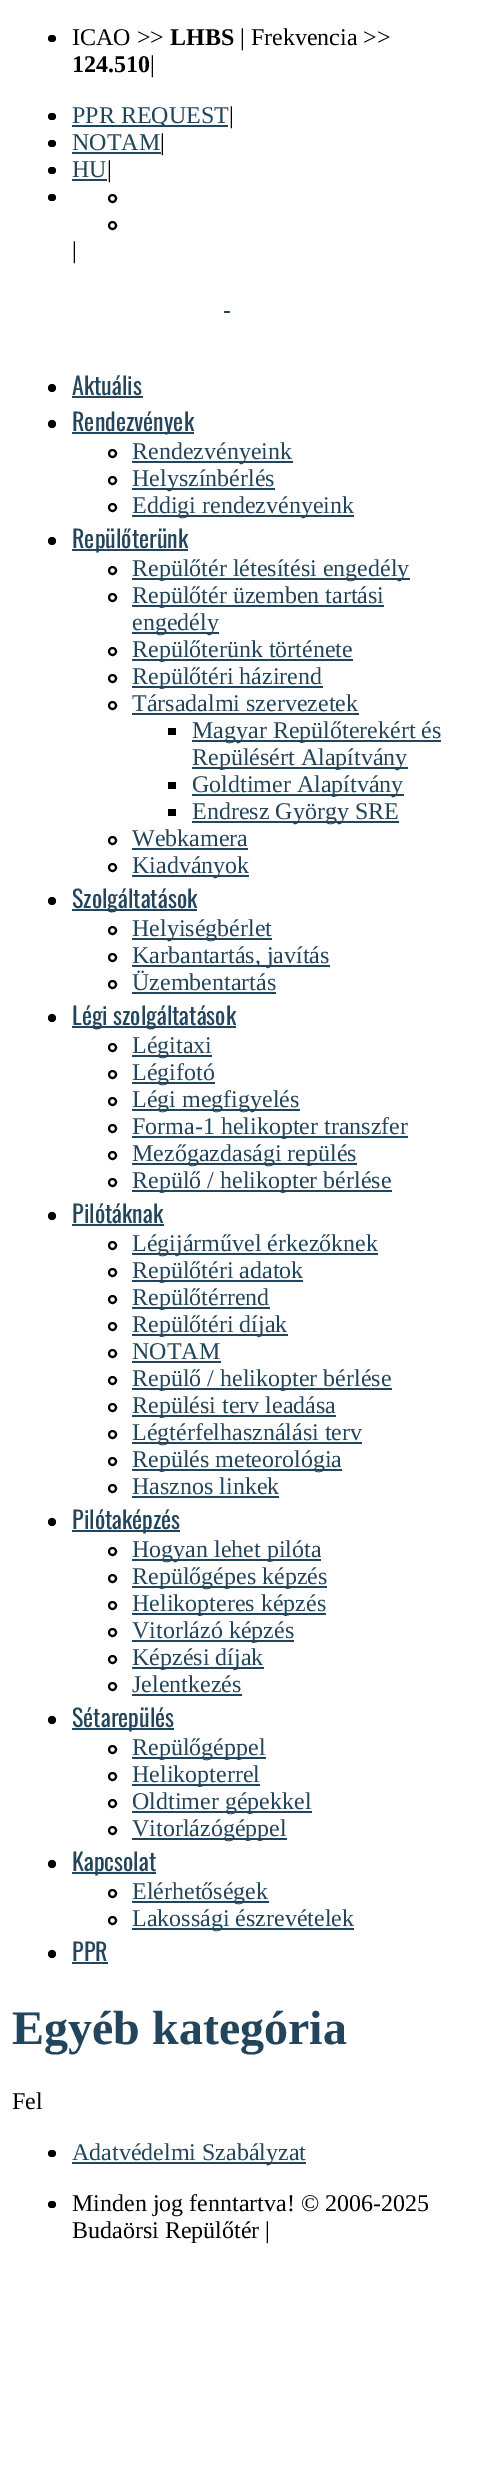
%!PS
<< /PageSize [477 2473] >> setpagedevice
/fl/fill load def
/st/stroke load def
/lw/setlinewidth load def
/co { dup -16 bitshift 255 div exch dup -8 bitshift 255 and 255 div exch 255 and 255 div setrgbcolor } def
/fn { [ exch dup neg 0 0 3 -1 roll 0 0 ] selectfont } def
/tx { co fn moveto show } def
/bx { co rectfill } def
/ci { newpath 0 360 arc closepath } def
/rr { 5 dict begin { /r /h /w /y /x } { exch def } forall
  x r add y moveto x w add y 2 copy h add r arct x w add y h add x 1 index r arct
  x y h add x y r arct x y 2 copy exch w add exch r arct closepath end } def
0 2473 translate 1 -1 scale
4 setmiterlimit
0 0 477 2473 16#FFFFFF bx
16#000000 co
48 35 8 7 3.5 rr fl
48 113 8 7 3.5 rr fl
72 125 156 2 16#22455B bx
16#000000 co
48 140 8 7 3.5 rr fl
72 152 89 2 16#22455B bx
16#000000 co
48 167 8 7 3.5 rr fl
72 179 35 2 16#22455B bx
16#000000 co
48 194 8 7 3.5 rr fl
2 lw
112.5 198.5 3.5 ci st
112.5 225.5 3.5 ci st
224 311 6 2 16#22455B bx
16#000000 co
52 388 4 ci fl
72 396 71 2 16#22455B bx
16#000000 co
52 424 4 ci fl
72 432 122 2 16#22455B bx
16#000000 co
112.5 453.5 3.5 ci st
132 461 161 2 16#22455B bx
16#000000 co
112.5 480.5 3.5 ci st
132 488 143 2 16#22455B bx
16#000000 co
112.5 507.5 3.5 ci st
132 515 222 2 16#22455B bx
16#000000 co
52 541 4 ci fl
72 549 116 2 16#22455B bx
16#000000 co
112.5 570.5 3.5 ci st
132 578 278 2 16#22455B bx
16#000000 co
112.5 597.5 3.5 ci st
132 605 252 2 16#22455B bx
132 632 87 2 16#22455B bx
16#000000 co
112.5 651.5 3.5 ci st
132 659 221 2 16#22455B bx
16#000000 co
112.5 678.5 3.5 ci st
132 686 191 2 16#22455B bx
16#000000 co
112.5 705.5 3.5 ci st
132 713 227 2 16#22455B bx
168 728 8 7 16#000000 bx
192 740 249 2 16#22455B bx
192 767 216 2 16#22455B bx
168 782 8 7 16#000000 bx
192 794 212 2 16#22455B bx
168 809 8 7 16#000000 bx
192 821 207 2 16#22455B bx
16#000000 co
112.5 840.5 3.5 ci st
132 848 116 2 16#22455B bx
16#000000 co
112.5 867.5 3.5 ci st
132 875 117 2 16#22455B bx
16#000000 co
52 901 4 ci fl
72 909 125 2 16#22455B bx
16#000000 co
112.5 930.5 3.5 ci st
132 938 140 2 16#22455B bx
16#000000 co
112.5 957.5 3.5 ci st
132 965 198 2 16#22455B bx
16#000000 co
112.5 984.5 3.5 ci st
132 992 144 2 16#22455B bx
16#000000 co
52 1018 4 ci fl
72 1026 164 2 16#22455B bx
16#000000 co
112.5 1047.5 3.5 ci st
132 1055 80 2 16#22455B bx
16#000000 co
112.5 1074.5 3.5 ci st
132 1082 83 2 16#22455B bx
16#000000 co
112.5 1101.5 3.5 ci st
132 1109 168 2 16#22455B bx
16#000000 co
112.5 1128.5 3.5 ci st
132 1136 276 2 16#22455B bx
16#000000 co
112.5 1155.5 3.5 ci st
132 1163 225 2 16#22455B bx
16#000000 co
112.5 1182.5 3.5 ci st
132 1190 260 2 16#22455B bx
16#000000 co
52 1216 4 ci fl
72 1224 92 2 16#22455B bx
16#000000 co
112.5 1245.5 3.5 ci st
132 1253 246 2 16#22455B bx
16#000000 co
112.5 1272.5 3.5 ci st
132 1280 171 2 16#22455B bx
16#000000 co
112.5 1299.5 3.5 ci st
132 1307 138 2 16#22455B bx
16#000000 co
112.5 1326.5 3.5 ci st
132 1334 156 2 16#22455B bx
16#000000 co
112.5 1353.5 3.5 ci st
132 1361 89 2 16#22455B bx
16#000000 co
112.5 1380.5 3.5 ci st
132 1388 260 2 16#22455B bx
16#000000 co
112.5 1407.5 3.5 ci st
132 1415 204 2 16#22455B bx
16#000000 co
112.5 1434.5 3.5 ci st
132 1442 230 2 16#22455B bx
16#000000 co
112.5 1461.5 3.5 ci st
132 1469 210 2 16#22455B bx
16#000000 co
112.5 1488.5 3.5 ci st
132 1496 147 2 16#22455B bx
16#000000 co
52 1522 4 ci fl
72 1530 108 2 16#22455B bx
16#000000 co
112.5 1551.5 3.5 ci st
132 1559 189 2 16#22455B bx
16#000000 co
112.5 1578.5 3.5 ci st
132 1586 195 2 16#22455B bx
16#000000 co
112.5 1605.5 3.5 ci st
132 1613 194 2 16#22455B bx
16#000000 co
112.5 1632.5 3.5 ci st
132 1640 162 2 16#22455B bx
16#000000 co
112.5 1659.5 3.5 ci st
132 1667 132 2 16#22455B bx
16#000000 co
112.5 1686.5 3.5 ci st
132 1694 110 2 16#22455B bx
16#000000 co
52 1720 4 ci fl
72 1728 102 2 16#22455B bx
16#000000 co
112.5 1749.5 3.5 ci st
132 1757 134 2 16#22455B bx
16#000000 co
112.5 1776.5 3.5 ci st
132 1784 128 2 16#22455B bx
16#000000 co
112.5 1803.5 3.5 ci st
132 1811 180 2 16#22455B bx
16#000000 co
112.5 1830.5 3.5 ci st
132 1838 155 2 16#22455B bx
16#000000 co
52 1864 4 ci fl
72 1872 84 2 16#22455B bx
16#000000 co
112.5 1893.5 3.5 ci st
132 1901 137 2 16#22455B bx
16#000000 co
112.5 1920.5 3.5 ci st
132 1928 222 2 16#22455B bx
16#000000 co
52 1954 4 ci fl
72 1962 36 2 16#22455B bx
16#000000 co
48 2150 8 7 3.5 rr fl
72 2162 234 2 16#22455B bx
16#000000 co
48 2201 8 7 3.5 rr fl
(ICAO >>) 72 45 /LiberationSerif-Regular 24 16#000000 tx
(LHBS) 170 45 /LiberationSerif-Bold 24 16#000000 tx
(| Frekvencia >>) 240 45 /LiberationSerif-Regular 24 16#000000 tx
(124.510) 72 72 /LiberationSerif-Bold 24 16#000000 tx
(|) 150 72 /LiberationSerif-Regular 24 16#000000 tx
(PPR REQUEST) 72 123 /LiberationSerif-Regular 24 16#22455B tx
(|) 229 123 /LiberationSerif-Regular 24 16#000000 tx
(NOTAM) 72 150 /LiberationSerif-Regular 24 16#22455B tx
(|) 160 150 /LiberationSerif-Regular 24 16#000000 tx
(HU) 72 177 /LiberationSerif-Regular 24 16#22455B tx
(|) 107 177 /LiberationSerif-Regular 24 16#000000 tx
(|) 72 258 /LiberationSerif-Regular 24 16#000000 tx
(Aktuális) 72 395 /Oswald-Regular 24 16#22455B tx
(Rendezvények) 72 431 /Oswald-Regular 24 16#22455B tx
(Rendezvényeink) 132 459 /LiberationSerif-Regular 24 16#22455B tx
(Helyszínbérlés) 132 486 /LiberationSerif-Regular 24 16#22455B tx
(Eddigi rendezvényeink) 132 513 /LiberationSerif-Regular 24 16#22455B tx
(Repülőterünk) 72 548 /Oswald-Regular 24 16#22455B tx
(Repülőtér létesítési engedély) 132 576 /LiberationSerif-Regular 24 16#22455B tx
(Repülőtér üzemben tartási) 132 603 /LiberationSerif-Regular 24 16#22455B tx
(engedély) 132 630 /LiberationSerif-Regular 24 16#22455B tx
(Repülőterünk története) 132 657 /LiberationSerif-Regular 24 16#22455B tx
(Repülőtéri házirend) 132 684 /LiberationSerif-Regular 24 16#22455B tx
(Társadalmi szervezetek) 132 711 /LiberationSerif-Regular 24 16#22455B tx
(Magyar Repülőterekért és) 192 738 /LiberationSerif-Regular 24 16#22455B tx
(Repülésért Alapítvány) 192 765 /LiberationSerif-Regular 24 16#22455B tx
(Goldtimer Alapítvány) 192 792 /LiberationSerif-Regular 24 16#22455B tx
(Endresz György SRE) 192 819 /LiberationSerif-Regular 24 16#22455B tx
(Webkamera) 132 846 /LiberationSerif-Regular 24 16#22455B tx
(Kiadványok) 132 873 /LiberationSerif-Regular 24 16#22455B tx
(Szolgáltatások) 72 908 /Oswald-Regular 24 16#22455B tx
(Helyiségbérlet) 132 936 /LiberationSerif-Regular 24 16#22455B tx
(Karbantartás, javítás) 132 963 /LiberationSerif-Regular 24 16#22455B tx
(Üzembentartás) 132 990 /LiberationSerif-Regular 24 16#22455B tx
(Légi szolgáltatások) 72 1025 /Oswald-Regular 24 16#22455B tx
(Légitaxi) 132 1053 /LiberationSerif-Regular 24 16#22455B tx
(Légifotó) 132 1080 /LiberationSerif-Regular 24 16#22455B tx
(Légi megfigyelés) 132 1107 /LiberationSerif-Regular 24 16#22455B tx
(Forma-1 helikopter transzfer) 132 1134 /LiberationSerif-Regular 24 16#22455B tx
(Mezőgazdasági repülés) 132 1161 /LiberationSerif-Regular 24 16#22455B tx
(Repülő / helikopter bérlése) 132 1188 /LiberationSerif-Regular 24 16#22455B tx
(Pilótáknak) 72 1223 /Oswald-Regular 24 16#22455B tx
(Légijárművel érkezőknek) 132 1251 /LiberationSerif-Regular 24 16#22455B tx
(Repülőtéri adatok) 132 1278 /LiberationSerif-Regular 24 16#22455B tx
(Repülőtérrend) 132 1305 /LiberationSerif-Regular 24 16#22455B tx
(Repülőtéri díjak) 132 1332 /LiberationSerif-Regular 24 16#22455B tx
(NOTAM) 132 1359 /LiberationSerif-Regular 24 16#22455B tx
(Repülő / helikopter bérlése) 132 1386 /LiberationSerif-Regular 24 16#22455B tx
(Repülési terv leadása) 132 1413 /LiberationSerif-Regular 24 16#22455B tx
(Légtérfelhasználási terv) 132 1440 /LiberationSerif-Regular 24 16#22455B tx
(Repülés meteorológia) 132 1467 /LiberationSerif-Regular 24 16#22455B tx
(Hasznos linkek) 132 1494 /LiberationSerif-Regular 24 16#22455B tx
(Pilótaképzés) 72 1529 /Oswald-Regular 24 16#22455B tx
(Hogyan lehet pilóta) 132 1557 /LiberationSerif-Regular 24 16#22455B tx
(Repülőgépes képzés) 132 1584 /LiberationSerif-Regular 24 16#22455B tx
(Helikopteres képzés) 132 1611 /LiberationSerif-Regular 24 16#22455B tx
(Vitorlázó képzés) 132 1638 /LiberationSerif-Regular 24 16#22455B tx
(Képzési díjak) 132 1665 /LiberationSerif-Regular 24 16#22455B tx
(Jelentkezés) 132 1692 /LiberationSerif-Regular 24 16#22455B tx
(Sétarepülés) 72 1727 /Oswald-Regular 24 16#22455B tx
(Repülőgéppel) 132 1755 /LiberationSerif-Regular 24 16#22455B tx
(Helikopterrel) 132 1782 /LiberationSerif-Regular 24 16#22455B tx
(Oldtimer gépekkel) 132 1809 /LiberationSerif-Regular 24 16#22455B tx
(Vitorlázógéppel) 132 1836 /LiberationSerif-Regular 24 16#22455B tx
(Kapcsolat) 72 1871 /Oswald-Regular 24 16#22455B tx
(Elérhetőségek) 132 1899 /LiberationSerif-Regular 24 16#22455B tx
(Lakossági észrevételek) 132 1926 /LiberationSerif-Regular 24 16#22455B tx
(PPR) 72 1961 /Oswald-Regular 24 16#22455B tx
(Egyéb kategória) 12 2044 /LiberationSerif-Bold 48 16#22455B tx
(Fel) 12 2109 /LiberationSerif-Regular 24 16#000000 tx
(Adatvédelmi Szabályzat) 72 2160 /LiberationSerif-Regular 24 16#22455B tx
(Minden jog fenntartva! © 2006-2025) 72 2211 /LiberationSerif-Regular 24 16#000000 tx
(Budaörsi Repülőtér |) 72 2238 /LiberationSerif-Regular 24 16#000000 tx
showpage
